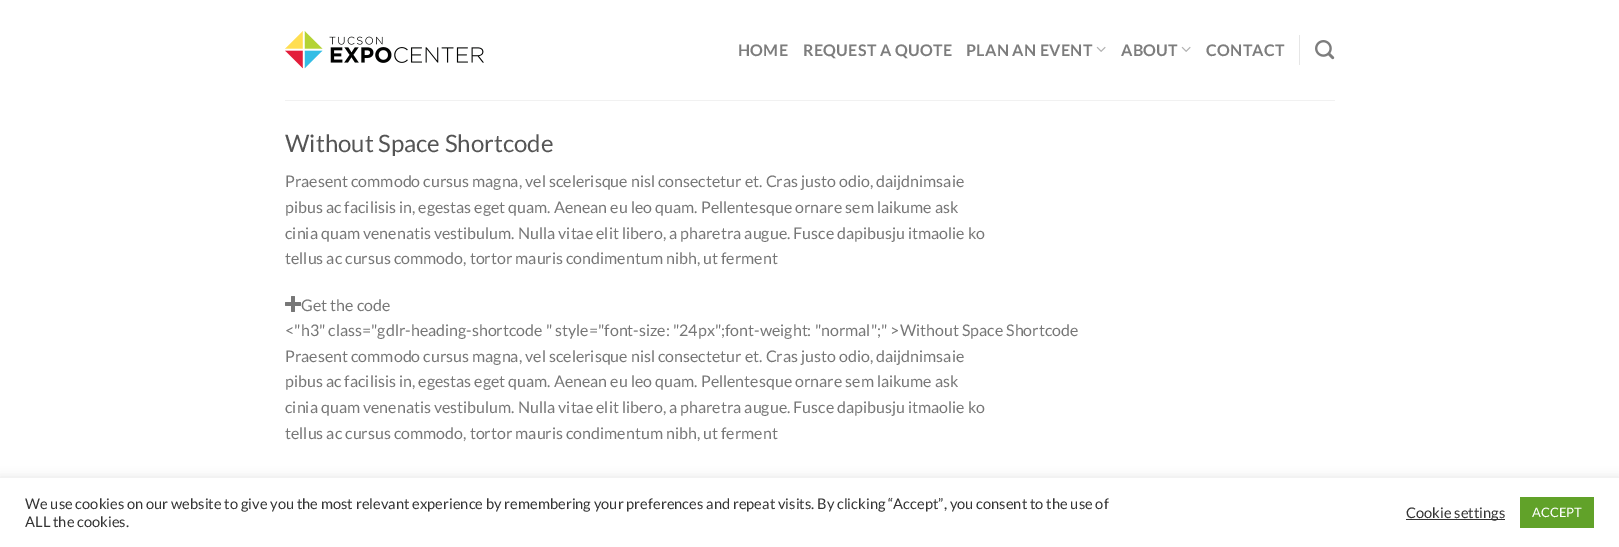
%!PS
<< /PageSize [1619 547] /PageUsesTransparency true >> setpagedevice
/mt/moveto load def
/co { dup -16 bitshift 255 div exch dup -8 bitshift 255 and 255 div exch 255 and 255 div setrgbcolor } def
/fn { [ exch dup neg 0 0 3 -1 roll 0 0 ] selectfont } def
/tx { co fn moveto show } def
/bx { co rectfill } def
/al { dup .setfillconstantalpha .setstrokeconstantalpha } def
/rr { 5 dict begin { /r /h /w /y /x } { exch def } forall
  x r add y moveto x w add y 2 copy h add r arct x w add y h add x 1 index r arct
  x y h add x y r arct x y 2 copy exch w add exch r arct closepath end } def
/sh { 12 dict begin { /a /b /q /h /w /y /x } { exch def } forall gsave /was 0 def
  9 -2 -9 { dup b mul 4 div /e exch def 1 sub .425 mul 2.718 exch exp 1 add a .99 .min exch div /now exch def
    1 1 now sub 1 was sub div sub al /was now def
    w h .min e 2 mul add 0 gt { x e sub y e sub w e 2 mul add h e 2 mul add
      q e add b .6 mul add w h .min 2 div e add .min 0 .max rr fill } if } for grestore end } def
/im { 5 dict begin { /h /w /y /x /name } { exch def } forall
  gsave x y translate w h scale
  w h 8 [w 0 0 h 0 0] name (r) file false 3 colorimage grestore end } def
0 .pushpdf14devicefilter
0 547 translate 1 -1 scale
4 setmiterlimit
0 0 1619 547 16#FFFFFF bx
(media/1.raw) 285 31 199 38 im
(media/2.raw) 1096 46 10 6 im
(media/2.raw) 1181 46 10 6 im
1299 35 1 30 16#E6E6E6 bx
(media/3.raw) 1315 40 20 20 im
285 100 1050 1 16#F1F1F1 bx
(media/4.raw) 285 296 16 16 im
16#ACABAB co
0 477 1619 69 0 5 .3 sh
0 478 1619 69 16#FFFFFF bx
1406 519 99 1 16#333333 bx
1520 497 74 31 16#61A229 bx
/Lato-Bold 16 fn
16#7D7D7D co
738 56 mt .3 0 (HOME) ashow
803 56 mt .3 0 (REQUEST A QUOTE) ashow
966 56 mt .3 0 (PLAN AN EVENT) ashow
1121 56 mt .3 0 (ABOUT) ashow
1206 56 mt .3 0 (CONTACT) ashow
(Without Space Shortcode) 285 152 /Lato-Regular 24 16#555555 tx
(Praesent commodo cursus magna, vel scelerisque nisl consectetur et. Cras justo odio, daijdnimsaie) 285 187 /Lato-Regular 16 16#777777 tx
(pibus ac facilisis in, egestas eget quam. Aenean eu leo quam. Pellentesque ornare sem laikume ask) 285 213 /Lato-Regular 16 16#777777 tx
(cinia quam venenatis vestibulum. Nulla vitae elit libero, a pharetra augue. Fusce dapibusju itmaolie ko) 285 239 /Lato-Regular 16 16#777777 tx
(tellus ac cursus commodo, tortor mauris condimentum nibh, ut ferment) 285 264 /Lato-Regular 16 16#777777 tx
(Get the code) 301 311 /Lato-Regular 16 16#777777 tx
(<"h3" class="gdlr-heading-shortcode " style="font-size: "24px";font-weight: "normal";" >Without Space Shortcode) 285 336 /Lato-Regular 16 16#777777 tx
(Praesent commodo cursus magna, vel scelerisque nisl consectetur et. Cras justo odio, daijdnimsaie) 285 362 /Lato-Regular 16 16#777777 tx
(pibus ac facilisis in, egestas eget quam. Aenean eu leo quam. Pellentesque ornare sem laikume ask) 285 387 /Lato-Regular 16 16#777777 tx
(cinia quam venenatis vestibulum. Nulla vitae elit libero, a pharetra augue. Fusce dapibusju itmaolie ko) 285 413 /Lato-Regular 16 16#777777 tx
(tellus ac cursus commodo, tortor mauris condimentum nibh, ut ferment) 285 439 /Lato-Regular 16 16#777777 tx
(We use cookies on our website to give you the most relevant experience by remembering your preferences and repeat visits. By clicking “Accept”, you consent to the use of) 25 509 /Lato-Regular 14.67 16#333333 tx
(ALL the cookies.) 25 527 /Lato-Regular 14.67 16#333333 tx
(Cookie settings) 1406 518 /Lato-Regular 14.67 16#333333 tx
(ACCEPT) 1532 517 /Lato-Regular 13 16#FFFFFF tx
.poppdf14devicefilter showpage
